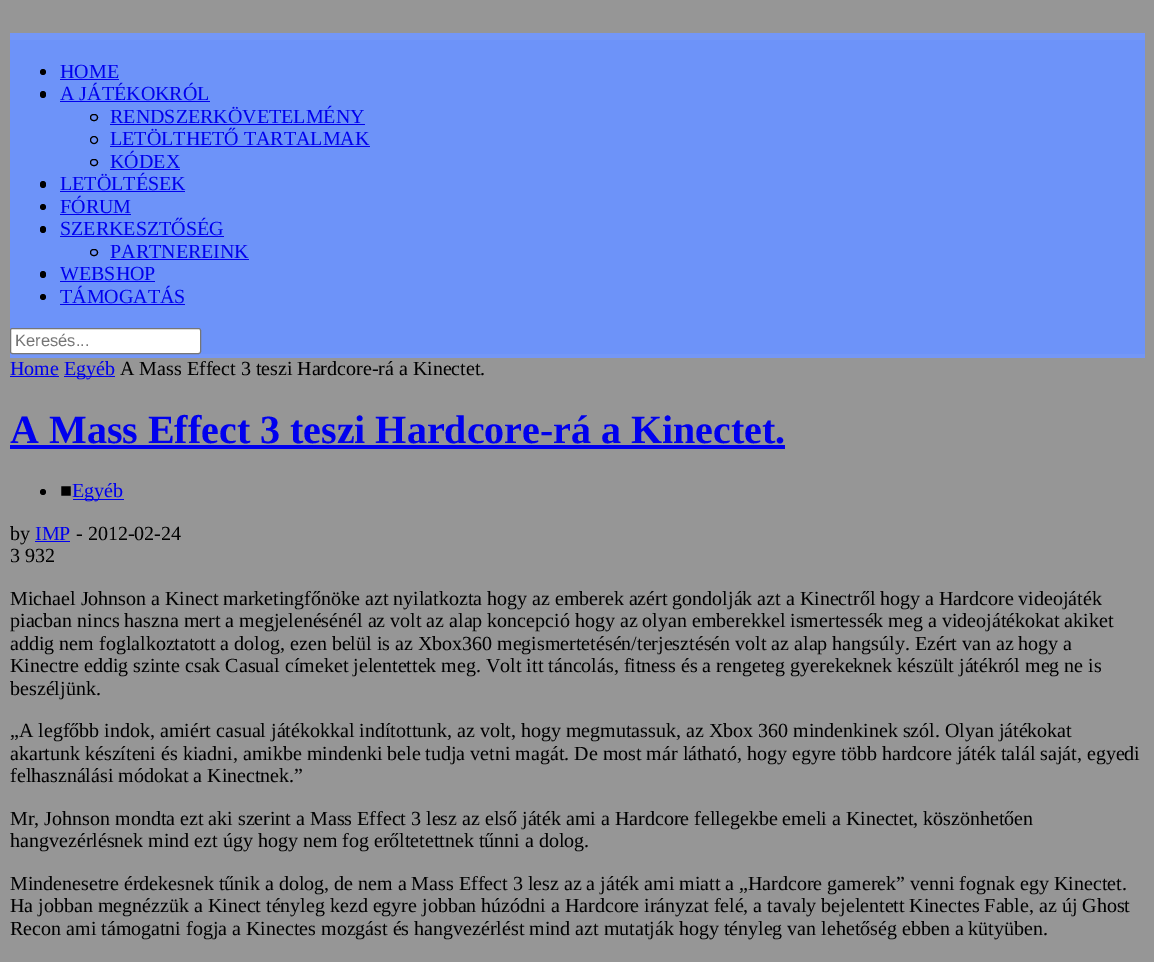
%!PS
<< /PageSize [1154 962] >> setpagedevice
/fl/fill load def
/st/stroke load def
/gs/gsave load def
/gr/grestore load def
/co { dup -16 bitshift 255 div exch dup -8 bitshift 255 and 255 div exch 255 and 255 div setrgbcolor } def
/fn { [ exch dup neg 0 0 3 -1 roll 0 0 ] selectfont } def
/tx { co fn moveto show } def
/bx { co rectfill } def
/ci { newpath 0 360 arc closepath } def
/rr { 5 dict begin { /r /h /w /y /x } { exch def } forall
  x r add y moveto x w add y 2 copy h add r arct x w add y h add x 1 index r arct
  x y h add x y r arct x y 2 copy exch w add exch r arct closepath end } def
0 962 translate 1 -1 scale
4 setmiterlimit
0 0 1154 962 16#969696 bx
10 40 1135 314 16#6D93F9 bx
10 354 1135 4 16#7497F7 bx
10 33 1135 7 16#7497F7 bx
16#000000 co
43 72 3 ci fl
60 79 59 1 16#0000EE bx
16#000000 co
40 91 6 7 3 rr fl
60 101 150 1 16#0000EE bx
16#000000 co
90.5 114.5 7 6 3 rr st
110 124 255 1 16#0000EE bx
16#000000 co
94 140 3.5 ci st
110 146 260 1 16#0000EE bx
16#000000 co
90.5 159.5 7 6 3 rr st
110 169 70 1 16#0000EE bx
16#000000 co
40 181 6 7 3 rr fl
60 191 125 1 16#0000EE bx
16#000000 co
43 207 3 ci fl
60 214 71 1 16#0000EE bx
16#000000 co
40 226 6 7 3 rr fl
60 236 164 1 16#0000EE bx
16#000000 co
90.5 249.5 7 6 3 rr st
110 259 139 1 16#0000EE bx
16#000000 co
40 271 6 7 3 rr fl
60 281 95 1 16#0000EE bx
16#000000 co
43 297 3 ci fl
60 304 125 1 16#0000EE bx
16#FFFFFF co
10.5 328.5 190 25 2 rr gs fl gr
16#767676 co
st
10 376 49 1 16#0000EE bx
64 376 51 1 16#0000EE bx
10 445 775 4 16#0000EE bx
16#000000 co
43 492 3 ci fl
73 499 51 1 16#0000EE bx
35 541 35 1 16#0000EE bx
(HOME) 60 78 /LiberationSerif-Regular 20 16#0000EE tx
(A JÁTÉKOKRÓL) 60 100 /LiberationSerif-Regular 20 16#0000EE tx
(RENDSZERKÖVETELMÉNY) 110 123 /LiberationSerif-Regular 20 16#0000EE tx
(LETÖLTHETŐ TARTALMAK) 110 145 /LiberationSerif-Regular 20 16#0000EE tx
(KÓDEX) 110 168 /LiberationSerif-Regular 20 16#0000EE tx
(LETÖLTÉSEK) 60 190 /LiberationSerif-Regular 20 16#0000EE tx
(FÓRUM) 60 213 /LiberationSerif-Regular 20 16#0000EE tx
(SZERKESZTŐSÉG) 60 235 /LiberationSerif-Regular 20 16#0000EE tx
(PARTNEREINK) 110 258 /LiberationSerif-Regular 20 16#0000EE tx
(WEBSHOP) 60 280 /LiberationSerif-Regular 20 16#0000EE tx
(TÁMOGATÁS) 60 303 /LiberationSerif-Regular 20 16#0000EE tx
(Keresés...) 15 346 /LiberationSans-Regular 16.5 16#757575 tx
(Home) 10 375 /LiberationSerif-Regular 20 16#0000EE tx
(Egyéb) 64 375 /LiberationSerif-Regular 20 16#0000EE tx
(A Mass Effect 3 teszi Hardcore-rá a Kinectet.) 120 375 /LiberationSerif-Regular 20 16#000000 tx
(A Mass Effect 3 teszi Hardcore-rá a Kinectet.) 10 443 /LiberationSerif-Bold 40 16#0000EE tx
(■) 60 497 /LiberationSerif-Regular 20 16#000000 tx
(Egyéb) 72 497 /LiberationSerif-Regular 20 16#0000EE tx
(by) 10 540 /LiberationSerif-Regular 20 16#000000 tx
(IMP) 35 540 /LiberationSerif-Regular 20 16#0000EE tx
(- 2012-02-24) 76 540 /LiberationSerif-Regular 20 16#000000 tx
(3 932) 10 562 /LiberationSerif-Regular 20 16#000000 tx
(Michael Johnson a Kinect marketingfőnöke azt nyilatkozta hogy az emberek azért gondolják azt a Kinectről hogy a Hardcore videojáték) 10 605 /LiberationSerif-Regular 20 16#000000 tx
(piacban nincs haszna mert a megjelenésénél az volt az alap koncepció hogy az olyan emberekkel ismertessék meg a videojátékokat akiket) 10 627 /LiberationSerif-Regular 20 16#000000 tx
(addig nem foglalkoztatott a dolog, ezen belül is az Xbox360 megismertetésén/terjesztésén volt az alap hangsúly. Ezért van az hogy a) 10 650 /LiberationSerif-Regular 20 16#000000 tx
(Kinectre eddig szinte csak Casual címeket jelentettek meg. Volt itt táncolás, fitness és a rengeteg gyerekeknek készült játékról meg ne is) 10 672 /LiberationSerif-Regular 20 16#000000 tx
(beszéljünk.) 10 695 /LiberationSerif-Regular 20 16#000000 tx
(„A legfőbb indok, amiért casual játékokkal indítottunk, az volt, hogy megmutassuk, az Xbox 360 mindenkinek szól. Olyan játékokat) 10 737 /LiberationSerif-Regular 20 16#000000 tx
(akartunk készíteni és kiadni, amikbe mindenki bele tudja vetni magát. De most már látható, hogy egyre több hardcore játék talál saját, egyedi) 10 760 /LiberationSerif-Regular 20 16#000000 tx
(felhasználási módokat a Kinectnek.”) 10 782 /LiberationSerif-Regular 20 16#000000 tx
(Mr, Johnson mondta ezt aki szerint a Mass Effect 3 lesz az első játék ami a Hardcore fellegekbe emeli a Kinectet, köszönhetően) 10 825 /LiberationSerif-Regular 20 16#000000 tx
(hangvezérlésnek mind ezt úgy hogy nem fog erőltetettnek tűnni a dolog.) 10 847 /LiberationSerif-Regular 20 16#000000 tx
(Mindenesetre érdekesnek tűnik a dolog, de nem a Mass Effect 3 lesz az a játék ami miatt a „Hardcore gamerek” venni fognak egy Kinectet.) 10 890 /LiberationSerif-Regular 20 16#000000 tx
(Ha jobban megnézzük a Kinect tényleg kezd egyre jobban húzódni a Hardcore irányzat felé, a tavaly bejelentett Kinectes Fable, az új Ghost) 10 912 /LiberationSerif-Regular 20 16#000000 tx
(Recon ami támogatni fogja a Kinectes mozgást és hangvezérlést mind azt mutatják hogy tényleg van lehetőség ebben a kütyüben.) 10 935 /LiberationSerif-Regular 20 16#000000 tx
showpage
